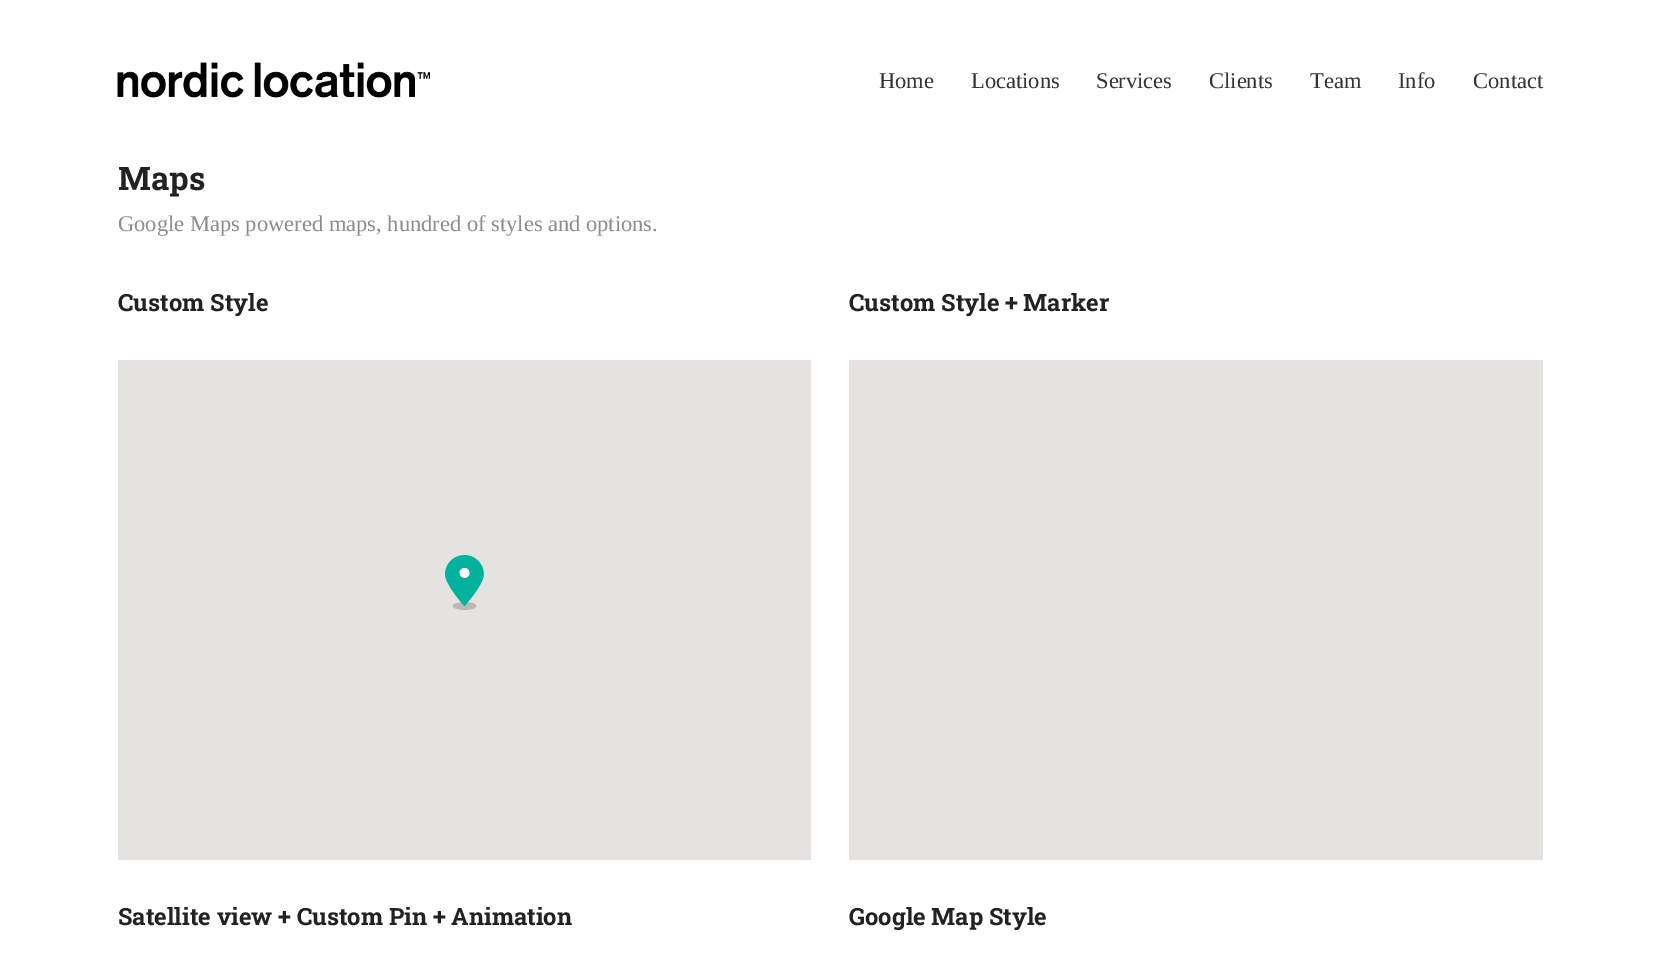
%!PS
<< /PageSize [1659 957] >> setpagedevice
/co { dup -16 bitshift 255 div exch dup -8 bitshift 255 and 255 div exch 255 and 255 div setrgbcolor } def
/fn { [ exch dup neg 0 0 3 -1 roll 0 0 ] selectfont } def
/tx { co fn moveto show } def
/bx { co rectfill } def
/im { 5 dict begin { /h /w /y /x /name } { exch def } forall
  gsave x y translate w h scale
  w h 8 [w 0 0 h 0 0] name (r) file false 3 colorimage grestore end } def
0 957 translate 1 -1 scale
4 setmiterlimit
0 0 1659 957 16#FFFFFF bx
(media/1.raw) 117 62 313 36 im
118 360 693 500 16#E5E3DF bx
(media/2.raw) 444 555 40 55 im
849 360 694 500 16#E5E3DF bx
(Home) 879 88 /LiberationSerif-Regular 22.5 16#333333 tx
(Locations) 971 88 /LiberationSerif-Regular 22.5 16#333333 tx
(Services) 1096 88 /LiberationSerif-Regular 22.5 16#333333 tx
(Clients) 1209 88 /LiberationSerif-Regular 22.5 16#333333 tx
(Team) 1310 88 /LiberationSerif-Regular 22.5 16#333333 tx
(Info) 1398 88 /LiberationSerif-Regular 22.5 16#333333 tx
(Contact) 1473 88 /LiberationSerif-Regular 22.5 16#333333 tx
(Maps) 118 190 /RobotoSlab-Bold 32.5 16#222222 tx
(Google Maps powered maps, hundred of styles and options.) 118 231 /LiberationSerif-Regular 22.5 16#8C8C8C tx
(Custom Style) 118 311 /RobotoSlab-Bold 23.75 16#222222 tx
(Custom Style + Marker) 849 311 /RobotoSlab-Bold 23.75 16#222222 tx
(Satellite view + Custom Pin + Animation) 118 925 /RobotoSlab-Bold 23.75 16#222222 tx
(Google Map Style) 849 925 /RobotoSlab-Bold 23.75 16#222222 tx
showpage
